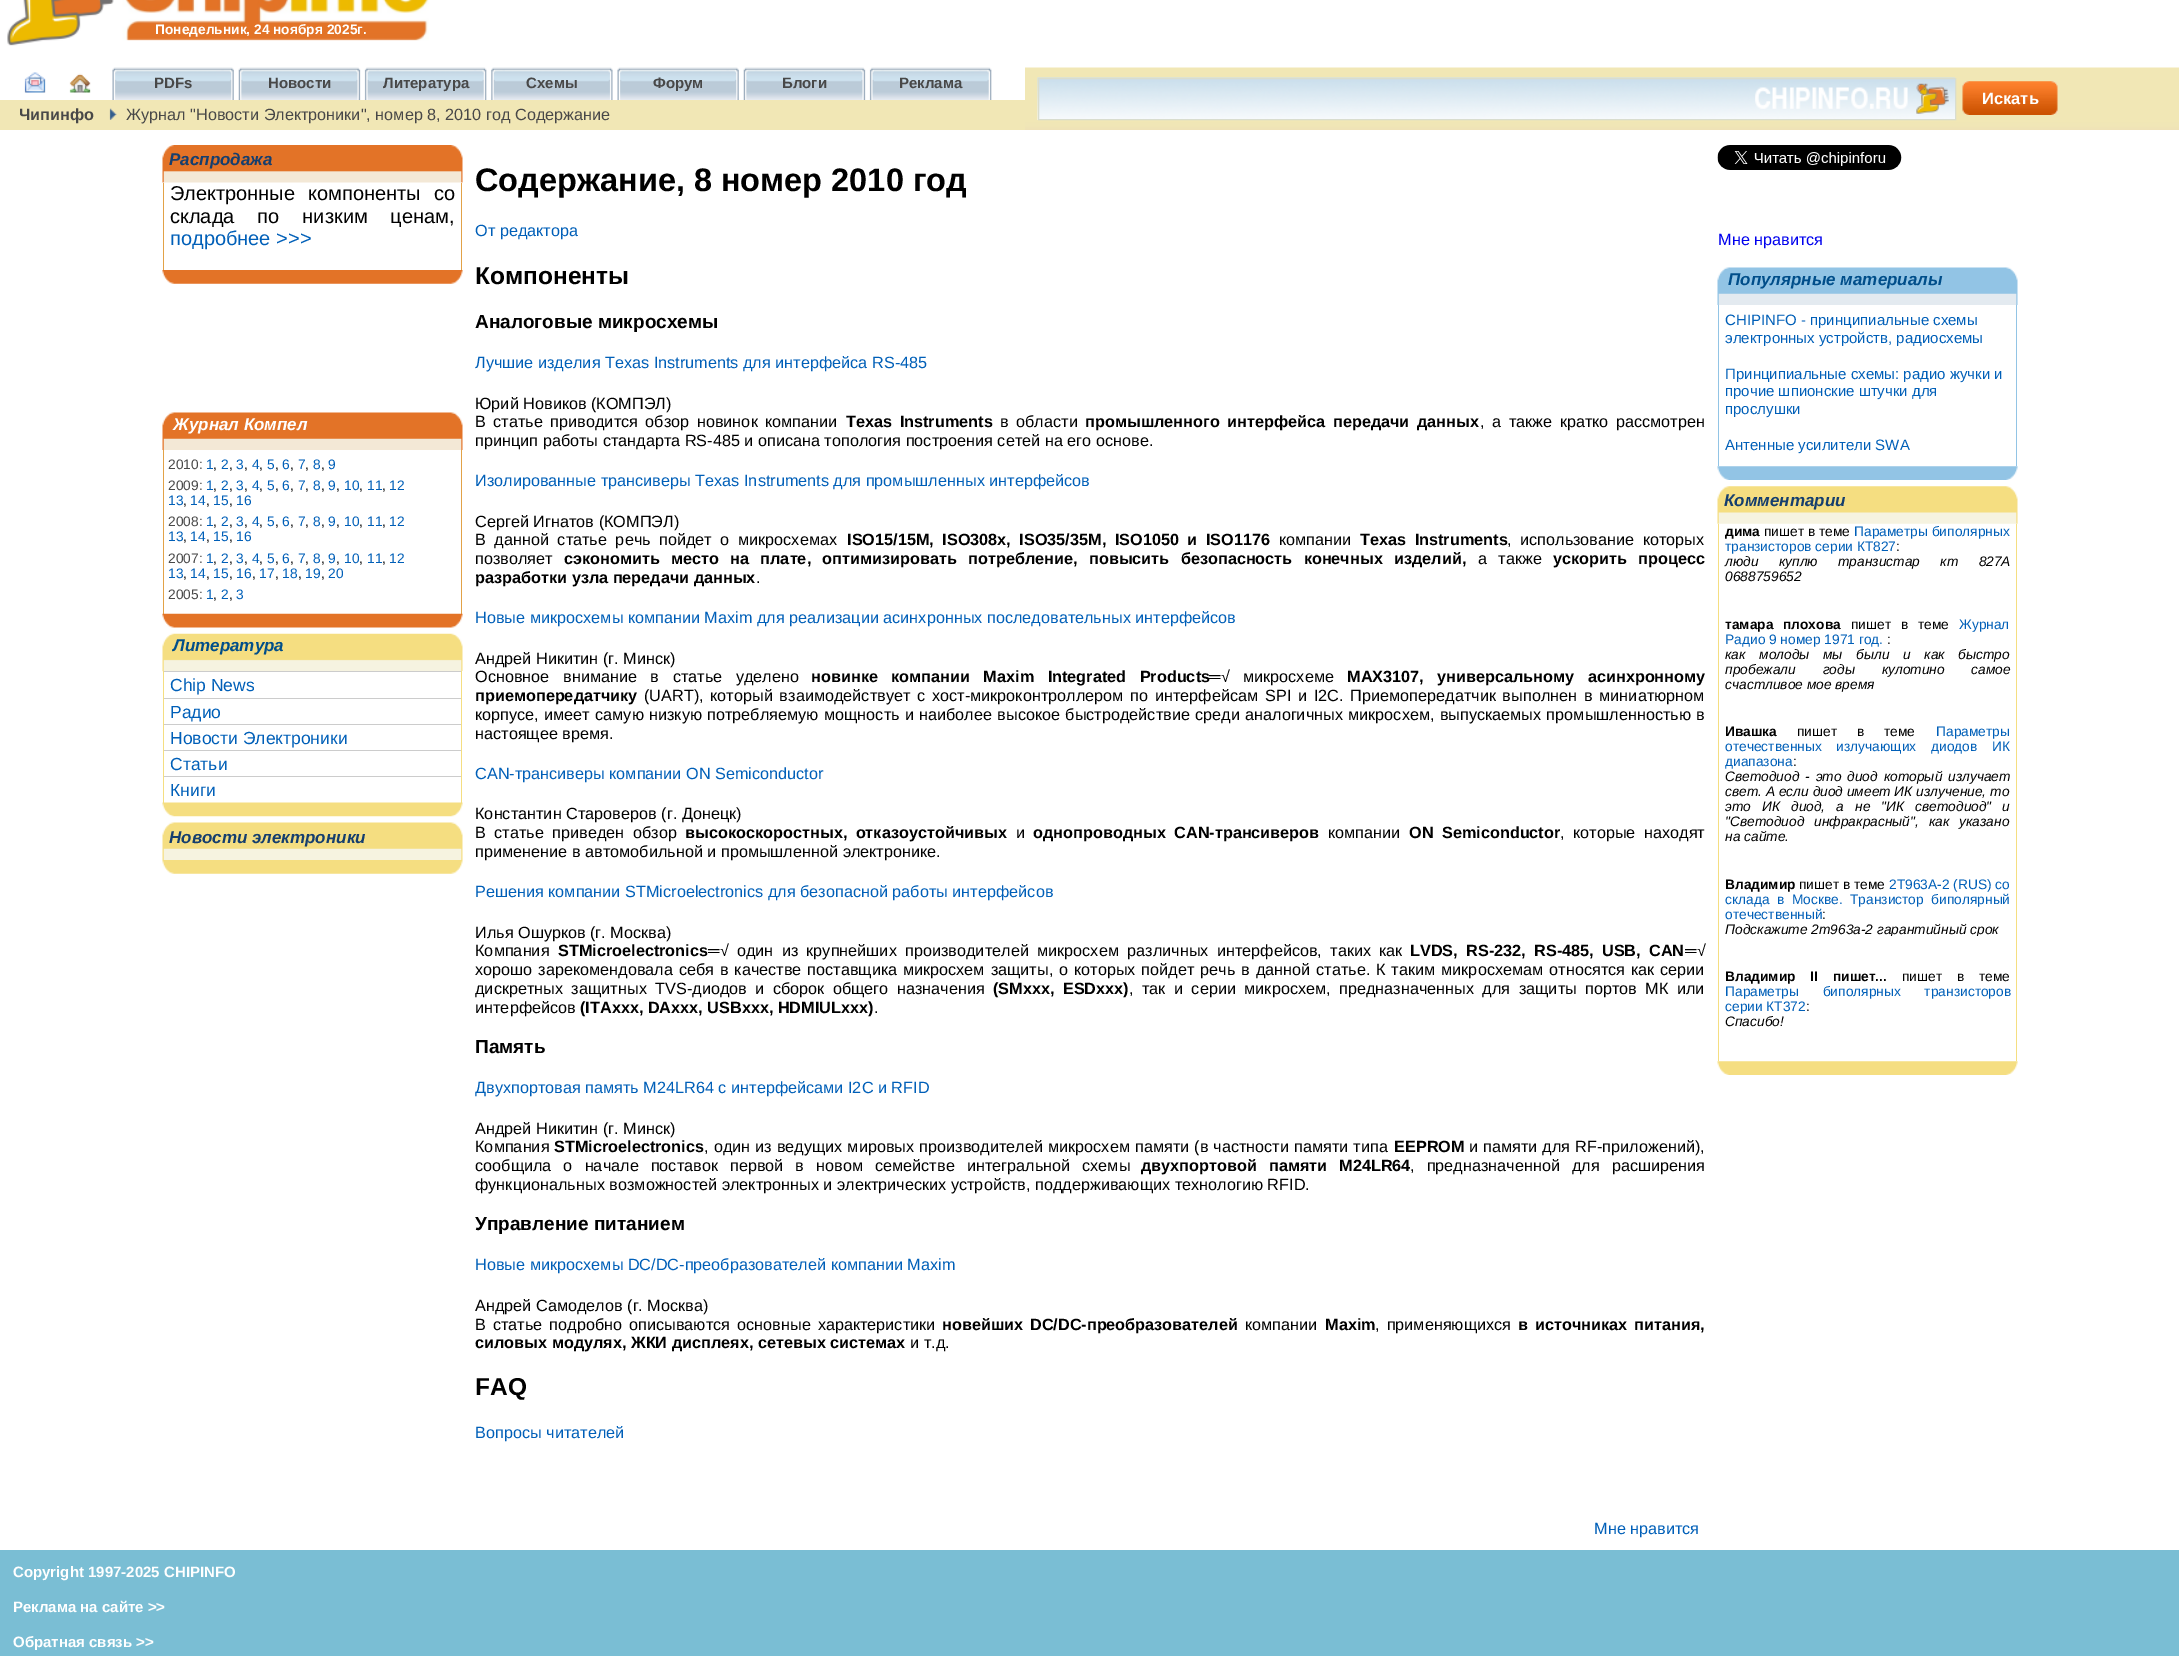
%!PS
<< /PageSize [2179 1656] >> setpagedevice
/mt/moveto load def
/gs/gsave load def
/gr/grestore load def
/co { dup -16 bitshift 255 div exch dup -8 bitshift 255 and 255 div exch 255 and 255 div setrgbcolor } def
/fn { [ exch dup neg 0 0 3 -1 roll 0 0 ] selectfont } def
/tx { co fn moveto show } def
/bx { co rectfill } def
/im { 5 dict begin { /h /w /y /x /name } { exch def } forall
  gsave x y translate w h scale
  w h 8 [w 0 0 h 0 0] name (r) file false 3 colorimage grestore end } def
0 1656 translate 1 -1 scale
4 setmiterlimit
0 0 2179 1656 16#FFFFFF bx
(media/1.raw) 7 0 422 46 im
(media/2.raw) 13 72 45 28 im
(media/3.raw) 57 73 46 27 im
(media/4.raw) 110 67 127 33 im
(media/5.raw) 236 67 127 33 im
(media/6.raw) 362 67 127 33 im
(media/7.raw) 489 67 126 33 im
(media/4.raw) 615 67 127 33 im
(media/5.raw) 741 67 127 33 im
(media/8.raw) 867 67 127 33 im
(media/9.raw) 1025 67 1154 63 im
(media/10.raw) 1037 77 918 43 im
16#D9DDCF co
1038.5 78.5 917 41 rectstroke
(media/11.raw) 1962 81 96 34 im
0 100 1025 30 16#F1E7B5 bx
(media/12.raw) 109 108 8 12 im
(media/13.raw) 162 145 301 38 im
461 183 1 87 16#E2A248 bx
163 183 1 87 16#E2A248 bx
(media/14.raw) 162 270 301 14 im
(media/15.raw) 162 412 301 38 im
461 450 1 164 16#E2A248 bx
163 450 1 164 16#E2A248 bx
(media/16.raw) 162 613 301 15 im
(media/17.raw) 162 633 301 39 im
164 671 299 1 16#FFFFFF bx
461 671 1 132 16#F5DE81 bx
163 671 1 132 16#F5DE81 bx
164 671 297 1 16#CCCCCC bx
164 698 297 1 16#CCCCCC bx
164 724 297 1 16#CCCCCC bx
164 750 297 1 16#CCCCCC bx
164 776 297 1 16#CCCCCC bx
(media/18.raw) 162 802 301 15 im
(media/19.raw) 162 822 301 38 im
(media/20.raw) 162 860 301 14 im
(media/21.raw) 1717 145 185 25 im
(media/22.raw) 1717 267 301 38 im
2016 305 1 161 16#92C4E5 bx
1718 305 1 161 16#92C4E5 bx
(media/23.raw) 1717 466 301 14 im
(media/24.raw) 1717 486 301 38 im
2016 524 1 537 16#F5DE81 bx
1718 524 1 537 16#F5DE81 bx
(media/25.raw) 1717 1061 301 14 im
0 1550 2179 106 16#7ABED4 bx
(Понедельник, 24 ноября 2025г.) 155 34 /LiberationSans-Bold 13.75 16#FFFFFF tx
(PDFs) 154 88 /LiberationSans-Bold 15 16#484848 tx
(Новости) 268 88 /LiberationSans-Bold 15 16#484848 tx
(Литература) 383 88 /LiberationSans-Bold 15 16#484848 tx
(Схемы) 526 88 /LiberationSans-Bold 15 16#484848 tx
(Форум) 653 88 /LiberationSans-Bold 15 16#484848 tx
(Блоги) 782 88 /LiberationSans-Bold 15 16#484848 tx
(Реклама) 899 88 /LiberationSans-Bold 15 16#484848 tx
(Искать) 1982 104 /LiberationSans-Bold 16.5 16#FFFFFF tx
(Чипинфо) 19 120 /LiberationSans-Bold 16.25 16#484848 tx
(Журнал "Новости Электроники", номер 8, 2010 год Содержание) 126 120 /LiberationSans-Regular 16.25 16#484848 tx
(Распродажа) 169 165 /LiberationSans-BoldItalic 17 16#153E6E tx
/LiberationSans-Regular 20 fn
16#000000 co
170 200 mt 8 0 32 (Электронные компоненты со) widthshow
170 223 mt 17.5 0 32 (склада по низким ценам,) widthshow
(подробнее >>>) 170 245 /LiberationSans-Regular 20 16#005FB8 tx
(Журнал Компел) 173 430 /LiberationSans-BoldItalic 17 16#FFFFFF tx
(2010:) 168 469 /LiberationSans-Regular 13.75 16#484848 tx
(1) 206 469 /LiberationSans-Regular 13.75 16#005FB8 tx
(,) 213 469 /LiberationSans-Regular 13.75 16#000000 tx
(2) 221 469 /LiberationSans-Regular 13.75 16#005FB8 tx
(,) 229 469 /LiberationSans-Regular 13.75 16#000000 tx
(3) 236 469 /LiberationSans-Regular 13.75 16#005FB8 tx
(,) 244 469 /LiberationSans-Regular 13.75 16#000000 tx
(4) 252 469 /LiberationSans-Regular 13.75 16#005FB8 tx
(,) 259 469 /LiberationSans-Regular 13.75 16#000000 tx
(5) 267 469 /LiberationSans-Regular 13.75 16#005FB8 tx
(,) 275 469 /LiberationSans-Regular 13.75 16#000000 tx
(6) 282 469 /LiberationSans-Regular 13.75 16#005FB8 tx
(,) 290 469 /LiberationSans-Regular 13.75 16#000000 tx
(7) 298 469 /LiberationSans-Regular 13.75 16#005FB8 tx
(,) 305 469 /LiberationSans-Regular 13.75 16#000000 tx
(8) 313 469 /LiberationSans-Regular 13.75 16#005FB8 tx
(,) 321 469 /LiberationSans-Regular 13.75 16#000000 tx
(9) 328 469 /LiberationSans-Regular 13.75 16#005FB8 tx
(2009:) 168 490 /LiberationSans-Regular 13.75 16#484848 tx
(1) 206 490 /LiberationSans-Regular 13.75 16#005FB8 tx
(,) 213 490 /LiberationSans-Regular 13.75 16#000000 tx
(2) 221 490 /LiberationSans-Regular 13.75 16#005FB8 tx
(,) 229 490 /LiberationSans-Regular 13.75 16#000000 tx
(3) 236 490 /LiberationSans-Regular 13.75 16#005FB8 tx
(,) 244 490 /LiberationSans-Regular 13.75 16#000000 tx
(4) 252 490 /LiberationSans-Regular 13.75 16#005FB8 tx
(,) 259 490 /LiberationSans-Regular 13.75 16#000000 tx
(5) 267 490 /LiberationSans-Regular 13.75 16#005FB8 tx
(,) 275 490 /LiberationSans-Regular 13.75 16#000000 tx
(6) 282 490 /LiberationSans-Regular 13.75 16#005FB8 tx
(,) 290 490 /LiberationSans-Regular 13.75 16#000000 tx
(7) 298 490 /LiberationSans-Regular 13.75 16#005FB8 tx
(,) 305 490 /LiberationSans-Regular 13.75 16#000000 tx
(8) 313 490 /LiberationSans-Regular 13.75 16#005FB8 tx
(,) 321 490 /LiberationSans-Regular 13.75 16#000000 tx
(9) 328 490 /LiberationSans-Regular 13.75 16#005FB8 tx
(,) 336 490 /LiberationSans-Regular 13.75 16#000000 tx
(10) 344 490 /LiberationSans-Regular 13.75 16#005FB8 tx
(,) 359 490 /LiberationSans-Regular 13.75 16#000000 tx
(11) 367 490 /LiberationSans-Regular 13.75 16#005FB8 tx
(,) 382 490 /LiberationSans-Regular 13.75 16#000000 tx
(12) 389 490 /LiberationSans-Regular 13.75 16#005FB8 tx
(13) 168 505 /LiberationSans-Regular 13.75 16#005FB8 tx
(,) 183 505 /LiberationSans-Regular 13.75 16#000000 tx
(14) 190 505 /LiberationSans-Regular 13.75 16#005FB8 tx
(,) 206 505 /LiberationSans-Regular 13.75 16#000000 tx
(15) 213 505 /LiberationSans-Regular 13.75 16#005FB8 tx
(,) 229 505 /LiberationSans-Regular 13.75 16#000000 tx
(16) 236 505 /LiberationSans-Regular 13.75 16#005FB8 tx
(2008:) 168 526 /LiberationSans-Regular 13.75 16#484848 tx
(1) 206 526 /LiberationSans-Regular 13.75 16#005FB8 tx
(,) 213 526 /LiberationSans-Regular 13.75 16#000000 tx
(2) 221 526 /LiberationSans-Regular 13.75 16#005FB8 tx
(,) 229 526 /LiberationSans-Regular 13.75 16#000000 tx
(3) 236 526 /LiberationSans-Regular 13.75 16#005FB8 tx
(,) 244 526 /LiberationSans-Regular 13.75 16#000000 tx
(4) 252 526 /LiberationSans-Regular 13.75 16#005FB8 tx
(,) 259 526 /LiberationSans-Regular 13.75 16#000000 tx
(5) 267 526 /LiberationSans-Regular 13.75 16#005FB8 tx
(,) 275 526 /LiberationSans-Regular 13.75 16#000000 tx
(6) 282 526 /LiberationSans-Regular 13.75 16#005FB8 tx
(,) 290 526 /LiberationSans-Regular 13.75 16#000000 tx
(7) 298 526 /LiberationSans-Regular 13.75 16#005FB8 tx
(,) 305 526 /LiberationSans-Regular 13.75 16#000000 tx
(8) 313 526 /LiberationSans-Regular 13.75 16#005FB8 tx
(,) 321 526 /LiberationSans-Regular 13.75 16#000000 tx
(9) 328 526 /LiberationSans-Regular 13.75 16#005FB8 tx
(,) 336 526 /LiberationSans-Regular 13.75 16#000000 tx
(10) 344 526 /LiberationSans-Regular 13.75 16#005FB8 tx
(,) 359 526 /LiberationSans-Regular 13.75 16#000000 tx
(11) 367 526 /LiberationSans-Regular 13.75 16#005FB8 tx
(,) 382 526 /LiberationSans-Regular 13.75 16#000000 tx
(12) 389 526 /LiberationSans-Regular 13.75 16#005FB8 tx
(13) 168 541 /LiberationSans-Regular 13.75 16#005FB8 tx
(,) 183 541 /LiberationSans-Regular 13.75 16#000000 tx
(14) 190 541 /LiberationSans-Regular 13.75 16#005FB8 tx
(,) 206 541 /LiberationSans-Regular 13.75 16#000000 tx
(15) 213 541 /LiberationSans-Regular 13.75 16#005FB8 tx
(,) 229 541 /LiberationSans-Regular 13.75 16#000000 tx
(16) 236 541 /LiberationSans-Regular 13.75 16#005FB8 tx
(2007:) 168 563 /LiberationSans-Regular 13.75 16#484848 tx
(1) 206 563 /LiberationSans-Regular 13.75 16#005FB8 tx
(,) 213 563 /LiberationSans-Regular 13.75 16#000000 tx
(2) 221 563 /LiberationSans-Regular 13.75 16#005FB8 tx
(,) 229 563 /LiberationSans-Regular 13.75 16#000000 tx
(3) 236 563 /LiberationSans-Regular 13.75 16#005FB8 tx
(,) 244 563 /LiberationSans-Regular 13.75 16#000000 tx
(4) 252 563 /LiberationSans-Regular 13.75 16#005FB8 tx
(,) 259 563 /LiberationSans-Regular 13.75 16#000000 tx
(5) 267 563 /LiberationSans-Regular 13.75 16#005FB8 tx
(,) 275 563 /LiberationSans-Regular 13.75 16#000000 tx
(6) 282 563 /LiberationSans-Regular 13.75 16#005FB8 tx
(,) 290 563 /LiberationSans-Regular 13.75 16#000000 tx
(7) 298 563 /LiberationSans-Regular 13.75 16#005FB8 tx
(,) 305 563 /LiberationSans-Regular 13.75 16#000000 tx
(8) 313 563 /LiberationSans-Regular 13.75 16#005FB8 tx
(,) 321 563 /LiberationSans-Regular 13.75 16#000000 tx
(9) 328 563 /LiberationSans-Regular 13.75 16#005FB8 tx
(,) 336 563 /LiberationSans-Regular 13.75 16#000000 tx
(10) 344 563 /LiberationSans-Regular 13.75 16#005FB8 tx
(,) 359 563 /LiberationSans-Regular 13.75 16#000000 tx
(11) 367 563 /LiberationSans-Regular 13.75 16#005FB8 tx
(,) 382 563 /LiberationSans-Regular 13.75 16#000000 tx
(12) 389 563 /LiberationSans-Regular 13.75 16#005FB8 tx
(13) 168 578 /LiberationSans-Regular 13.75 16#005FB8 tx
(,) 183 578 /LiberationSans-Regular 13.75 16#000000 tx
(14) 190 578 /LiberationSans-Regular 13.75 16#005FB8 tx
(,) 206 578 /LiberationSans-Regular 13.75 16#000000 tx
(15) 213 578 /LiberationSans-Regular 13.75 16#005FB8 tx
(,) 229 578 /LiberationSans-Regular 13.75 16#000000 tx
(16) 236 578 /LiberationSans-Regular 13.75 16#005FB8 tx
(,) 252 578 /LiberationSans-Regular 13.75 16#000000 tx
(17) 259 578 /LiberationSans-Regular 13.75 16#005FB8 tx
(,) 275 578 /LiberationSans-Regular 13.75 16#000000 tx
(18) 282 578 /LiberationSans-Regular 13.75 16#005FB8 tx
(,) 298 578 /LiberationSans-Regular 13.75 16#000000 tx
(19) 305 578 /LiberationSans-Regular 13.75 16#005FB8 tx
(,) 321 578 /LiberationSans-Regular 13.75 16#000000 tx
(20) 328 578 /LiberationSans-Regular 13.75 16#005FB8 tx
(2005:) 168 599 /LiberationSans-Regular 13.75 16#484848 tx
(1) 206 599 /LiberationSans-Regular 13.75 16#005FB8 tx
(,) 213 599 /LiberationSans-Regular 13.75 16#000000 tx
(2) 221 599 /LiberationSans-Regular 13.75 16#005FB8 tx
(,) 229 599 /LiberationSans-Regular 13.75 16#000000 tx
(3) 236 599 /LiberationSans-Regular 13.75 16#005FB8 tx
(Литература) 173 651 /LiberationSans-BoldItalic 17 16#004E8A tx
(Chip News) 170 691 /LiberationSans-Regular 17.5 16#005FB8 tx
(Радио) 170 718 /LiberationSans-Regular 17.5 16#005FB8 tx
(Новости Электроники) 170 744 /LiberationSans-Regular 17.5 16#005FB8 tx
(Статьи) 170 770 /LiberationSans-Regular 17.5 16#005FB8 tx
(Книги) 170 796 /LiberationSans-Regular 17.5 16#005FB8 tx
(Новости электроники) 169 843 /LiberationSans-BoldItalic 17 16#153E6E tx
(Содержание, 8 номер 2010 год) 475 191 /LiberationSans-Bold 32.5 16#000000 tx
(От редактора) 475 236 /LiberationSans-Regular 16.25 16#005FB8 tx
(Компоненты) 475 284 /LiberationSans-Bold 24.5 16#000000 tx
(Аналоговые микросхемы) 475 328 /LiberationSans-Bold 19 16#000000 tx
(Лучшие изделия Texas Instruments для интерфейса RS-485) 475 368 /LiberationSans-Regular 16.25 16#005FB8 tx
(Юрий Новиков \(КОМПЭЛ\)) 475 409 /LiberationSans-Regular 16.25 16#000000 tx
475 427 mt 3 0 32 (В статье приводится обзор новинок компании) widthshow
/LiberationSans-Bold 16.25 fn
846 427 mt 3 0 32 (Texas Instruments) widthshow
/LiberationSans-Regular 16.25 fn
1000 427 mt 3 0 32 (в области) widthshow
/LiberationSans-Bold 16.25 fn
1085 427 mt 3 0 32 (промышленного интерфейса передачи данных) widthshow
/LiberationSans-Regular 16.25 fn
1480 427 mt 3 0 32 (, а также кратко рассмотрен) widthshow
(принцип работы стандарта RS-485 и описана топология построения сетей на его основе.) 475 446 /LiberationSans-Regular 16.25 16#000000 tx
(Изолированные трансиверы Texas Instruments для промышленных интерфейсов) 475 486 /LiberationSans-Regular 16.25 16#005FB8 tx
(Сергей Игнатов \(КОМПЭЛ\)) 475 527 /LiberationSans-Regular 16.25 16#000000 tx
475 545 mt 4 0 32 (В данной статье речь пойдет о микросхемах) widthshow
/LiberationSans-Bold 16.25 fn
847 545 mt 4 0 32 (ISO15/15M, ISO308x, ISO35/35M, ISO1050 и ISO1176) widthshow
(компании) 1279 545 /LiberationSans-Regular 16.25 16#000000 tx
/LiberationSans-Bold 16.25 fn
1360 545 mt 4 0 32 (Texas Instruments) widthshow
/LiberationSans-Regular 16.25 fn
1507 545 mt 4 0 32 (, использование которых) widthshow
(позволяет) 475 564 /LiberationSans-Regular 16.25 16#000000 tx
/LiberationSans-Bold 16.25 fn
564 564 mt 6.75 0 32 (сэкономить место на плате, оптимизировать потребление, повысить безопасность конечных изделий,) widthshow
/LiberationSans-Regular 16.25 fn
1478 564 mt 6.75 0 32 (а также) widthshow
/LiberationSans-Bold 16.25 fn
1553 564 mt 6.75 0 32 (ускорить процесс) widthshow
(разработки узла передачи данных) 475 583 /LiberationSans-Bold 16.25 16#000000 tx
(.) 756 583 /LiberationSans-Regular 16.25 16#000000 tx
(Новые микросхемы компании Maxim для реализации асинхронных последовательных интерфейсов) 475 623 /LiberationSans-Regular 16.25 16#005FB8 tx
(Андрей Никитин \(г. Минск\)) 475 664 /LiberationSans-Regular 16.25 16#000000 tx
475 682 mt 9 0 32 (Основное внимание в статье уделено) widthshow
/LiberationSans-Bold 16.25 fn
811 682 mt 9 0 32 (новинке компании Maxim Integrated Products) widthshow
/LiberationSans-Regular 16.25 fn
1209 682 mt 9 0 32 (═√ микросхеме) widthshow
/LiberationSans-Bold 16.25 fn
1347 682 mt 9 0 32 (MAX3107, универсальному асинхронному) widthshow
(приемопередатчику) 475 701 /LiberationSans-Bold 16.25 16#000000 tx
/LiberationSans-Regular 16.25 fn
644 701 mt 2.25 0 32 (\(UART\), который взаимодействует с хост-микроконтроллером по интерфейсам SPI и I2C. Приемопередатчик выполнен в миниатюрном) widthshow
475 720 mt .75 0 32 (корпусе, имеет самую низкую потребляемую мощность и наиболее высокое быстродействие среди аналогичных микросхем, выпускаемых промышленностью в) widthshow
(настоящее время.) 475 739 /LiberationSans-Regular 16.25 16#000000 tx
(CAN-трансиверы компании ON Semiconductor) 475 779 /LiberationSans-Regular 16.25 16#005FB8 tx
(Константин Староверов \(г. Донецк\)) 475 819 /LiberationSans-Regular 16.25 16#000000 tx
475 838 mt 4 0 32 (В статье приведен обзор) widthshow
/LiberationSans-Bold 16.25 fn
685 838 mt 4 0 32 (высокоскоростных, отказоустойчивых) widthshow
(и) 1016 838 /LiberationSans-Regular 16.25 16#000000 tx
/LiberationSans-Bold 16.25 fn
1033 838 mt 4 0 32 (однопроводных CAN-трансиверов) widthshow
(компании) 1328 838 /LiberationSans-Regular 16.25 16#000000 tx
/LiberationSans-Bold 16.25 fn
1409 838 mt 4 0 32 (ON Semiconductor) widthshow
/LiberationSans-Regular 16.25 fn
1560 838 mt 4 0 32 (, которые находят) widthshow
(применение в автомобильной и промышленной электронике.) 475 857 /LiberationSans-Regular 16.25 16#000000 tx
(Решения компании STMicroelectronics для безопасной работы интерфейсов) 475 897 /LiberationSans-Regular 16.25 16#005FB8 tx
(Илья Ошурков \(г. Москва\)) 475 938 /LiberationSans-Regular 16.25 16#000000 tx
(Компания) 475 956 /LiberationSans-Regular 16.25 16#000000 tx
(STMicroelectronics) 558 956 /LiberationSans-Bold 16.25 16#000000 tx
/LiberationSans-Regular 16.25 fn
708 956 mt 3.75 0 32 (═√ один из крупнейших производителей микросхем различных интерфейсов, таких как) widthshow
/LiberationSans-Bold 16.25 fn
1410 956 mt 3.75 0 32 (LVDS, RS-232, RS-485, USB, CAN) widthshow
(═√) 1685 956 /LiberationSans-Regular 16.25 16#000000 tx
475 975 mt 1.4 0 32 (хорошо зарекомендовала себя в качестве поставщика микросхем защиты, о которых пойдет речь в данной статье. К таким микросхемам относятся как серии) widthshow
475 994 mt 3.9 0 32 (дискретных защитных TVS-диодов и сборок общего назначения) widthshow
/LiberationSans-Bold 16.25 fn
993 994 mt 3.9 0 32 (\(SMxxx, ESDxxx\)) widthshow
/LiberationSans-Regular 16.25 fn
1129 994 mt 3.9 0 32 (, так и серии микросхем, предназначенных для защиты портов МК или) widthshow
(интерфейсов) 475 1013 /LiberationSans-Regular 16.25 16#000000 tx
(\(ITAxxx, DAxxx, USBxxx, HDMIULxxx\)) 580 1013 /LiberationSans-Bold 16.25 16#000000 tx
(.) 874 1013 /LiberationSans-Regular 16.25 16#000000 tx
(Память) 475 1053 /LiberationSans-Bold 19 16#000000 tx
(Двухпортовая память M24LR64 с интерфейсами I2C и RFID) 475 1093 /LiberationSans-Regular 16.25 16#005FB8 tx
(Андрей Никитин \(г. Минск\)) 475 1134 /LiberationSans-Regular 16.25 16#000000 tx
(Компания) 475 1152 /LiberationSans-Regular 16.25 16#000000 tx
(STMicroelectronics) 554 1152 /LiberationSans-Bold 16.25 16#000000 tx
/LiberationSans-Regular 16.25 fn
704 1152 mt .5 0 32 (, один из ведущих мировых производителей микросхем памяти \(в частности памяти типа) widthshow
(EEPROM) 1394 1152 /LiberationSans-Bold 16.25 16#000000 tx
/LiberationSans-Regular 16.25 fn
1469 1152 mt .5 0 32 (и памяти для RF-приложений\),) widthshow
475 1171 mt 7.5 0 32 (сообщила о начале поставок первой в новом семействе интегральной схемы) widthshow
/LiberationSans-Bold 16.25 fn
1141 1171 mt 7.5 0 32 (двухпортовой памяти M24LR64) widthshow
/LiberationSans-Regular 16.25 fn
1410 1171 mt 7.5 0 32 (, предназначенной для расширения) widthshow
(функциональных возможностей электронных и электрических устройств, поддерживающих технологию RFID.) 475 1190 /LiberationSans-Regular 16.25 16#000000 tx
(Управление питанием) 475 1230 /LiberationSans-Bold 19 16#000000 tx
(Новые микросхемы DC/DC-преобразователей компании Maxim) 475 1270 /LiberationSans-Regular 16.25 16#005FB8 tx
(Андрей Самоделов \(г. Москва\)) 475 1311 /LiberationSans-Regular 16.25 16#000000 tx
475 1330 mt 2.5 0 32 (В статье подробно описываются основные характеристики) widthshow
/LiberationSans-Bold 16.25 fn
942 1330 mt 2 0 32 (новейших DC/DC-преобразователей) widthshow
(компании) 1245 1330 /LiberationSans-Regular 16.25 16#000000 tx
(Maxim) 1325 1330 /LiberationSans-Bold 16.25 16#000000 tx
/LiberationSans-Regular 16.25 fn
1375 1330 mt 2.5 0 32 (, применяющихся) widthshow
/LiberationSans-Bold 16.25 fn
1518 1330 mt 2.5 0 32 (в источниках питания,) widthshow
(силовых модулях, ЖКИ дисплеях, сетевых системах) 475 1348 /LiberationSans-Bold 16.25 16#000000 tx
(и т.д.) 910 1348 /LiberationSans-Regular 16.25 16#000000 tx
(FAQ) 475 1395 /LiberationSans-Bold 24.5 16#000000 tx
(Вопросы читателей) 475 1438 /LiberationSans-Regular 16.25 16#005FB8 tx
(Мне нравится) 1594 1534 /LiberationSans-Regular 16.25 16#005FB8 tx
(Мне нравится) 1718 245 /LiberationSans-Regular 16.25 16#0000EE tx
(Популярные материалы) 1728 285 /LiberationSans-BoldItalic 17 16#004E8A tx
(CHIPINFO - принципиальные схемы) 1725 325 /LiberationSans-Regular 15 16#005FB8 tx
(электронных устройств, радиосхемы) 1725 343 /LiberationSans-Regular 15 16#005FB8 tx
(Принципиальные схемы: радио жучки и) 1725 379 /LiberationSans-Regular 15 16#005FB8 tx
(прочие шпионские штучки для) 1725 396 /LiberationSans-Regular 15 16#005FB8 tx
(прослушки) 1725 414 /LiberationSans-Regular 15 16#005FB8 tx
(Антенные усилители SWA) 1725 450 /LiberationSans-Regular 15 16#005FB8 tx
(Комментарии) 1724 506 /LiberationSans-BoldItalic 17 16#153E6E tx
(дима) 1725 536 /LiberationSans-Bold 13.75 16#000000 tx
(пишет в теме) 1764 536 /LiberationSans-Regular 13.75 16#000000 tx
(Параметры биполярных) 1854 536 /LiberationSans-Regular 13.75 16#005FB8 tx
(транзисторов серии КТ827) 1725 551 /LiberationSans-Regular 13.75 16#005FB8 tx
(:) 1896 551 /LiberationSans-Regular 13.75 16#000000 tx
/LiberationSans-Italic 13.75 fn
1725 566 mt 16.5 0 32 (люди куплю транзистар кт 827А) widthshow
(0688759652) 1725 581 /LiberationSans-Italic 13.75 16#000000 tx
/LiberationSans-Bold 13.75 fn
1725 629 mt 6 0 32 (тамара плохова) widthshow
/LiberationSans-Regular 13.75 fn
1851 629 mt 6 0 32 (пишет в теме) widthshow
(Журнал) 1959 629 /LiberationSans-Regular 13.75 16#005FB8 tx
(Радио 9 номер 1971 год.) 1725 644 /LiberationSans-Regular 13.75 16#005FB8 tx
(:) 1887 644 /LiberationSans-Regular 13.75 16#000000 tx
/LiberationSans-Italic 13.75 fn
1725 659 mt 9.75 0 32 (как молоды мы были и как быстро) widthshow
1725 674 mt 23 0 32 (пробежали годы кулотино самое) widthshow
(счастливое мое время) 1725 689 /LiberationSans-Italic 13.75 16#000000 tx
(Ивашка) 1725 736 /LiberationSans-Bold 13.75 16#000000 tx
/LiberationSans-Regular 13.75 fn
1797 736 mt 16 0 32 (пишет в теме) widthshow
(Параметры) 1936 736 /LiberationSans-Regular 13.75 16#005FB8 tx
1725 751 mt 11 0 32 (отечественных излучающих диодов ИК) widthshow
(диапазона) 1725 766 /LiberationSans-Regular 13.75 16#005FB8 tx
(:) 1793 766 /LiberationSans-Regular 13.75 16#000000 tx
/LiberationSans-Italic 13.75 fn
1725 781 mt 2 0 32 (Светодиод - это диод который излучает) widthshow
(свет. А если диод имеет ИК излучение, то) 1725 796 /LiberationSans-Italic 13.75 16#000000 tx
1725 811 mt 7.25 0 32 (это ИК диод, а не "ИК светодиод" и) widthshow
1725 826 mt 6 0 32 ("Светодиод инфракрасный", как указано) widthshow
(на сайте.) 1725 841 /LiberationSans-Italic 13.75 16#000000 tx
(Владимир) 1725 889 /LiberationSans-Bold 13.75 16#000000 tx
(пишет в теме) 1799 889 /LiberationSans-Regular 13.75 16#000000 tx
(2Т963А-2 \(RUS\) со) 1889 889 /LiberationSans-Regular 13.75 16#005FB8 tx
1725 904 mt 3.75 0 32 (склада в Москве. Транзистор биполярный) widthshow
(отечественный) 1725 919 /LiberationSans-Regular 13.75 16#005FB8 tx
(:) 1822 919 /LiberationSans-Regular 13.75 16#000000 tx
gs
1725 921 285 15 rectclip
(Подскажите 2т963а-2 гарантийный срок) 1725 934 /LiberationSans-Italic 13.75 16#000000 tx
gr
/LiberationSans-Bold 13.75 fn
1725 981 mt 11 0 32 (Владимир II пишет...) widthshow
/LiberationSans-Regular 13.75 fn
1902 981 mt 11 0 32 (пишет в теме) widthshow
16#005FB8 co
1725 996 mt 20 0 32 (Параметры биполярных транзисторов) widthshow
(серии КТ372) 1725 1011 /LiberationSans-Regular 13.75 16#005FB8 tx
(:) 1806 1011 /LiberationSans-Regular 13.75 16#000000 tx
(Спасибо!) 1725 1026 /LiberationSans-Italic 13.75 16#000000 tx
(Copyright 1997-2025 CHIPINFO) 13 1577 /LiberationSans-Bold 15 16#FFFFFF tx
(Реклама на сайте >>) 13 1612 /LiberationSans-Bold 15 16#FFFFFF tx
(Обратная связь >>) 13 1647 /LiberationSans-Bold 15 16#FFFFFF tx
showpage
